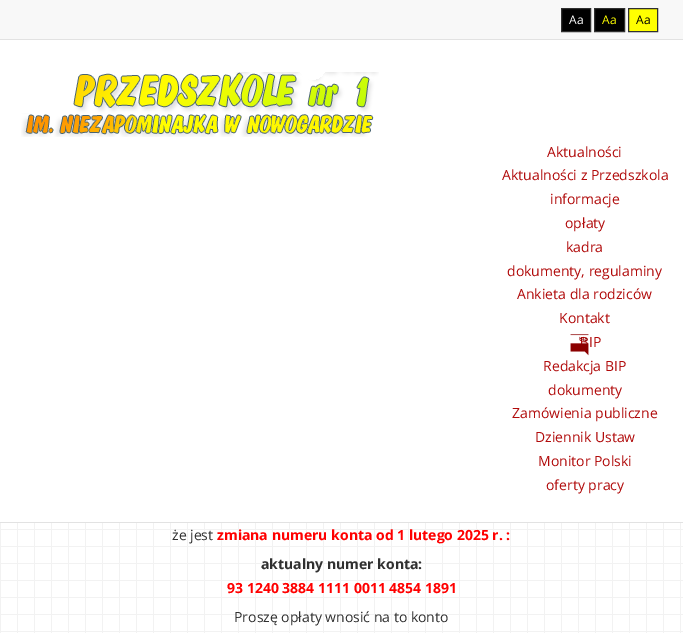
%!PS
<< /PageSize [683 633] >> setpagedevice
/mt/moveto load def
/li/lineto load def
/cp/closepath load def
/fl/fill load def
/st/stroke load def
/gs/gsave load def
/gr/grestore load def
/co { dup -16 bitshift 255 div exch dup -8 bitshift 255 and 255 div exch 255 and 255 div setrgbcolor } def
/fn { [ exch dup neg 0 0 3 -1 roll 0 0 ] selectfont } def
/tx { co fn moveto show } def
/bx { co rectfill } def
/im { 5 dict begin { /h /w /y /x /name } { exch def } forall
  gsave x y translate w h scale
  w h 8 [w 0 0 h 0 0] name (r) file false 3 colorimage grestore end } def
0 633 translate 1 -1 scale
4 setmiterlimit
0 0 683 633 16#FFFFFF bx
(media/1.raw) 0 523 683 110 im
0 522 683 1 16#E2E2E2 bx
0 0 683 39 16#F8F8F8 bx
0 39 683 1 16#E2E2E2 bx
16#000000 co
561.5 8.5 mt 590.5 8.5 li 590.5 31.5 li 561.5 31.5 li cp gs fl gr
16#303030 co
st
16#000000 co
594.5 8.5 mt 624.5 8.5 li 624.5 31.5 li 594.5 31.5 li cp gs fl gr
16#303030 co
st
16#FFFF00 co
628.5 8.5 mt 657.5 8.5 li 657.5 31.5 li 628.5 31.5 li cp gs fl gr
16#303030 co
st
(media/2.raw) 21 72 358 65 im
(Aa) 569 24 /OpenSans-Regular 12 16#FFFFFF tx
(Aa) 602 24 /OpenSans-Regular 12 16#FFFF00 tx
(Aa) 636 24 /OpenSans-Regular 12 16#000000 tx
(Aktualności) 547 157 /OpenSans-Regular 14 16#B10B0B tx
(Aktualności z Przedszkola) 502 180 /OpenSans-Regular 14 16#B10B0B tx
(informacje) 550 204 /OpenSans-Regular 14 16#B10B0B tx
(opłaty) 565 228 /OpenSans-Regular 14 16#B10B0B tx
(kadra) 566 252 /OpenSans-Regular 14 16#B10B0B tx
(dokumenty, regulaminy) 507 276 /OpenSans-Regular 14 16#B10B0B tx
(Ankieta dla rodziców) 517 299 /OpenSans-Regular 14 16#B10B0B tx
(Kontakt) 559 323 /OpenSans-Regular 14 16#B10B0B tx
(BIP) 580 347 /OpenSans-Regular 14 16#B10B0B tx
(media/3.raw) 570 334 19 22 im
(Redakcja BIP) 543 371 /OpenSans-Regular 14 16#B10B0B tx
(dokumenty) 548 395 /OpenSans-Regular 14 16#B10B0B tx
(Zamówienia publiczne) 512 418 /OpenSans-Regular 14 16#B10B0B tx
(Dziennik Ustaw) 535 442 /OpenSans-Regular 14 16#B10B0B tx
(Monitor Polski) 538 466 /OpenSans-Regular 14 16#B10B0B tx
(oferty pracy) 546 490 /OpenSans-Regular 14 16#B10B0B tx
(że jest) 172 540 /OpenSans-Regular 14 16#303030 tx
(zmiana numeru konta od 1 lutego 2025 r. :) 217 540 /OpenSans-Bold 14 16#FF0000 tx
(aktualny numer konta:) 261 569 /OpenSans-Bold 14 16#303030 tx
(93 1240 3884 1111 0011 4854 1891) 227 593 /OpenSans-Bold 14 16#FF0000 tx
(Proszę opłaty wnosić na to konto) 234 622 /OpenSans-Regular 14 16#303030 tx
showpage
